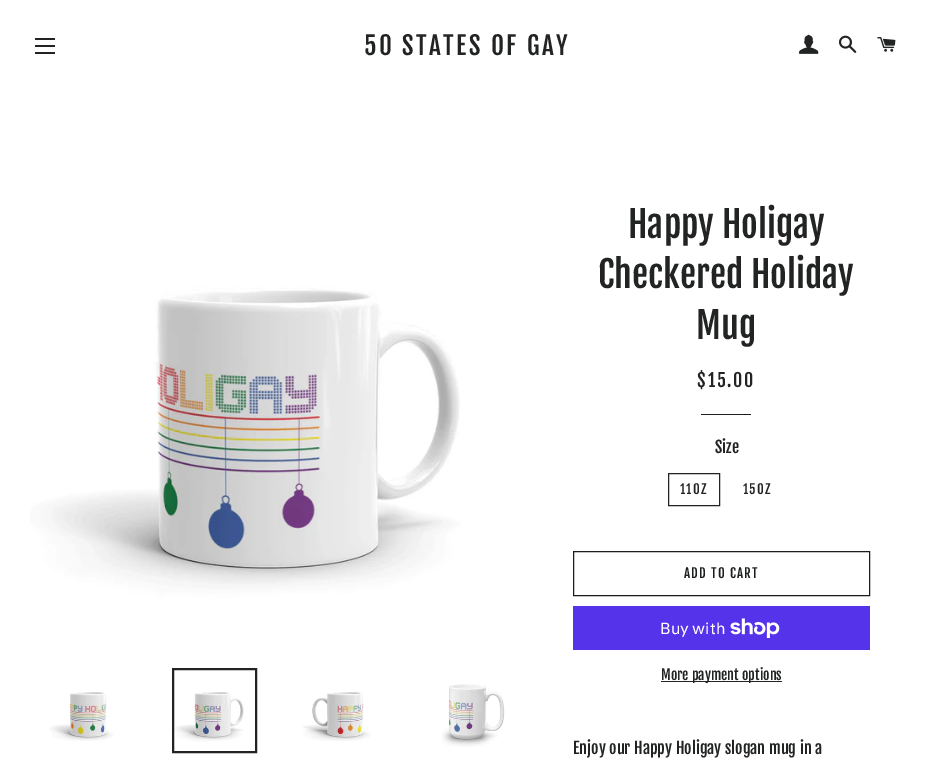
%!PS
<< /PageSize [935 761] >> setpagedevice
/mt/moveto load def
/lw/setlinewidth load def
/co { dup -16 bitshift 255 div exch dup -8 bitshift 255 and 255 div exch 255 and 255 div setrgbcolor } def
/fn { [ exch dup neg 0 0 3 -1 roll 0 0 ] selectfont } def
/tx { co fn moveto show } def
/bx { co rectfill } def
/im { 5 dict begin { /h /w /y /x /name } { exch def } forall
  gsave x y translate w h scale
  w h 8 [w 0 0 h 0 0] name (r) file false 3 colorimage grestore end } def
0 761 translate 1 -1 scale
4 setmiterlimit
0 0 935 761 16#FFFFFF bx
35 38 20 2 16#222323 bx
35 45 20 2 16#222323 bx
35 52 20 2 16#222323 bx
(media/1.raw) 799 34 20 20 im
(media/2.raw) 839 35 18 18 im
(media/3.raw) 877 37 19 15 im
(media/4.raw) 30 155 498 498 im
(media/5.raw) 49 692 65 49 im
2 lw
173 669 83 83 rectstroke
(media/6.raw) 175 692 69 50 im
(media/7.raw) 303 692 68 49 im
(media/8.raw) 442 684 63 63 im
701 414 50 1 16#1C1D1D bx
16#222323 co
1 lw
668.5 473.5 51 32 rectstroke
16#1C1D1D co
573.5 551.5 296 44 rectstroke
573 606 297 44 16#5433EB bx
(media/9.raw) 730 618 50 20 im
661 681 121 1 16#222323 bx
/FjallaOne-Regular 25 fn
364 55 mt 2.5 0 (50 STATES OF GAY) ashow
(Happy Holigay) 628 238 /FjallaOne-Regular 36 16#222323 tx
(Checkered Holiday) 598 288 /FjallaOne-Regular 36 16#222323 tx
(Mug) 696 339 /FjallaOne-Regular 36 16#222323 tx
/FjallaOne-Regular 18 fn
697 387 mt 1.75 0 ($15.00) ashow
(Size) 715 453 /FjallaOne-Regular 16 16#222323 tx
/FjallaOne-Regular 13 fn
680 494 mt 1.25 0 (11OZ) ashow
743 494 mt 1.25 0 (15OZ) ashow
16#1C1D1D co
684 578 mt 1.25 0 (ADD TO CART) ashow
(Buy with) 660 634 /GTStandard-Regular 16 16#FFFFFF tx
(More payment options) 661 680 /FjallaOne-Regular 14 16#222323 tx
(Enjoy our Happy Holigay slogan mug in a) 573 754 /FjallaOne-Regular 16 16#222323 tx
showpage
